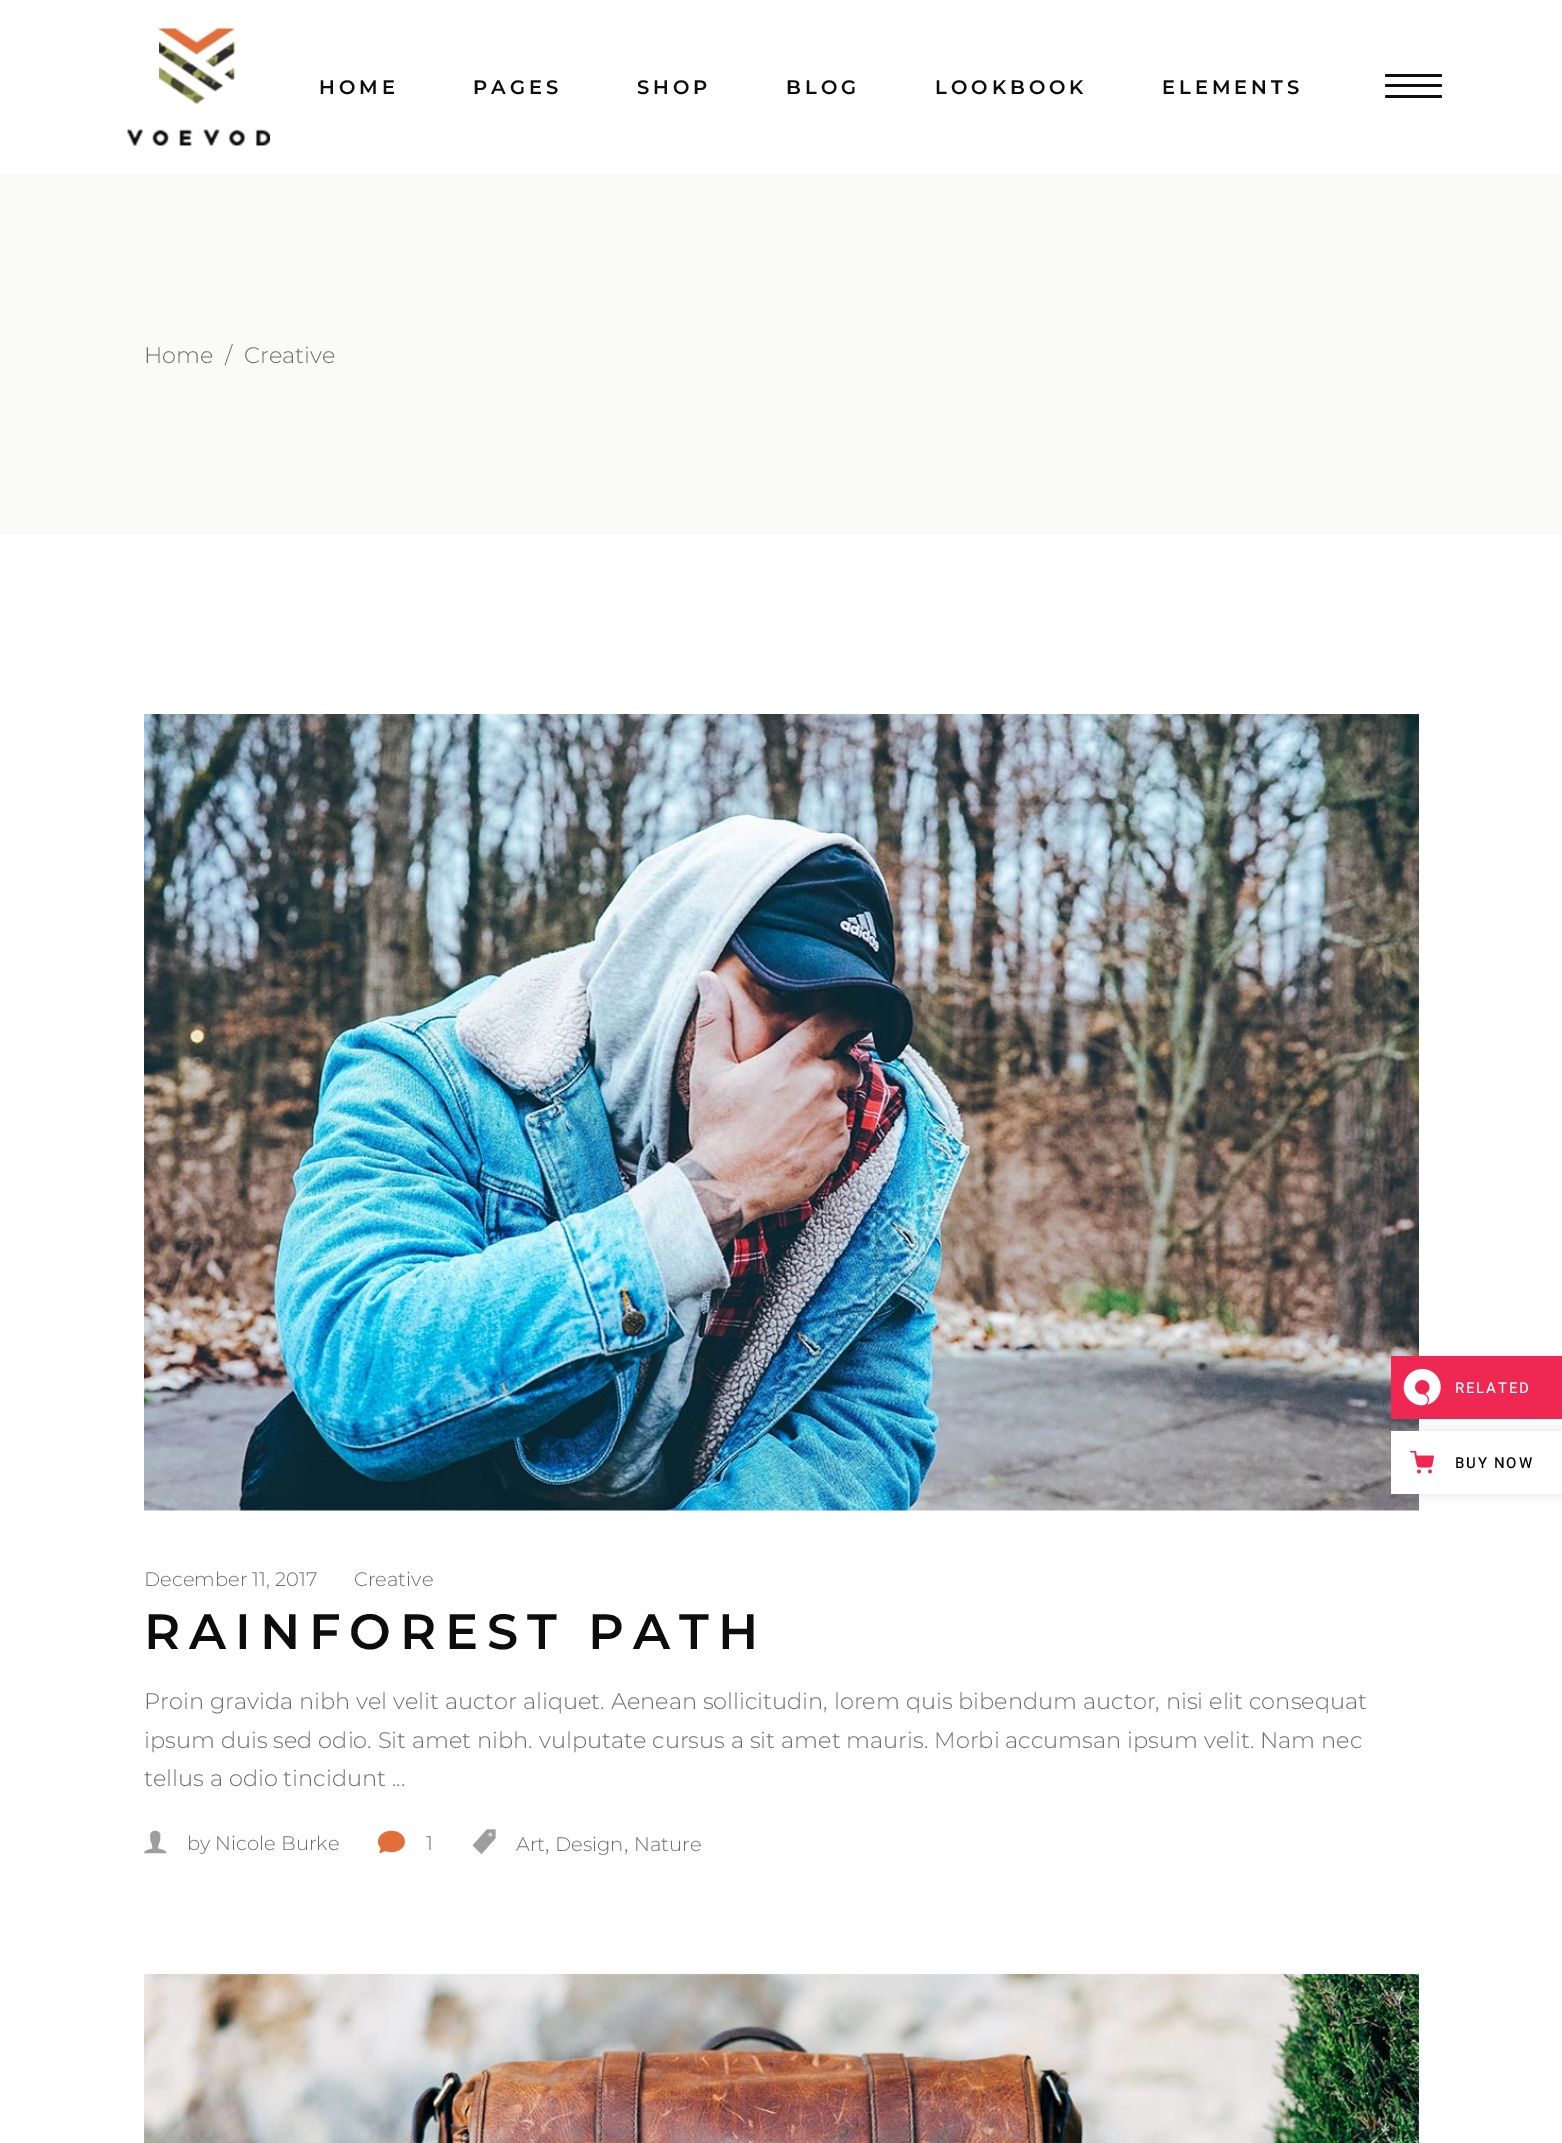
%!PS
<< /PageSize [1562 2143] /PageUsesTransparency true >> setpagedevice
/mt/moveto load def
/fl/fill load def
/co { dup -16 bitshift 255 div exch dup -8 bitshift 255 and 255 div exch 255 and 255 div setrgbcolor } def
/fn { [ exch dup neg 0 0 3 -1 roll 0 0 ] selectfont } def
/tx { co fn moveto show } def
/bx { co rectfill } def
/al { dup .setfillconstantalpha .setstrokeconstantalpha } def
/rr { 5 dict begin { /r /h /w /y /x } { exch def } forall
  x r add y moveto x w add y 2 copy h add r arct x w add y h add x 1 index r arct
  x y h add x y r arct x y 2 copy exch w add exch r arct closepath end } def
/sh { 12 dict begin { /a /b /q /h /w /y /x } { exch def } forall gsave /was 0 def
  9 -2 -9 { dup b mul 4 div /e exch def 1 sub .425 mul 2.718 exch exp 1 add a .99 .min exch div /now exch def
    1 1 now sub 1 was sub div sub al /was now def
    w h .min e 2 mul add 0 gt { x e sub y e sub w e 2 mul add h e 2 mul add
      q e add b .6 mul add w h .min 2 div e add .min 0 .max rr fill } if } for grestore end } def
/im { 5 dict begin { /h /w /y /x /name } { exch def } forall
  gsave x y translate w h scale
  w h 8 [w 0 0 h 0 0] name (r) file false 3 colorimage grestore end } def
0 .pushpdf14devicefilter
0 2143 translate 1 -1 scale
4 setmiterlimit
0 0 1562 2143 16#FFFFFF bx
(media/1.raw) 127 28 143 118 im
16#0D0D0D co
1385 74 57 3 1.5 rr fl
1385 84 57 3 1.5 rr fl
1385 95 57 3 1.5 rr fl
0 174 1562 360 16#FAFAF7 bx
(media/2.raw) 144 714 1275 797 im
(media/3.raw) 144 1830 23 24 im
(media/4.raw) 378 1830 27 24 im
(media/5.raw) 472 1829 24 26 im
(media/6.raw) 144 1974 1275 169 im
1391 1356 171 63 16#EF2853 bx
(media/7.raw) 1403 1368 38 38 im
16#000000 co
1391 1431 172 63 0 7.5 .1 sh
1391 1431 171 63 16#FFFFFF bx
(media/8.raw) 1410 1451 24 23 im
/Montserrat-SemiBold 19.5 fn
16#0D0D0D co
319 94 mt 4 0 (HOME) ashow
473 94 mt 4 0 (PAGES) ashow
637 94 mt 4 0 (SHOP) ashow
786 94 mt 4 0 (BLOG) ashow
935 94 mt 4 0 (LOOKBOOK) ashow
1162 94 mt 4 0 (ELEMENTS) ashow
(Home) 144 363 /Montserrat-Light 22.5 16#6D6D6D tx
(/) 225 363 /Montserrat-Light 22.5 16#6D6D6D tx
(Creative) 244 363 /Montserrat-Light 22.5 16#6D6D6D tx
(December 11, 2017) 144 1586 /Montserrat-Light 19.5 16#6D6D6D tx
(Creative) 354 1586 /Montserrat-Light 19.5 16#6D6D6D tx
/Montserrat-SemiBold 49.5 fn
16#0D0D0D co
144 1649 mt 8.9 0 (RAINFOREST PATH) ashow
(Proin gravida nibh vel velit auctor aliquet. Aenean sollicitudin, lorem quis bibendum auctor, nisi elit consequat) 144 1709 /Montserrat-Light 22.5 16#6D6D6D tx
(ipsum duis sed odio. Sit amet nibh. vulputate cursus a sit amet mauris. Morbi accumsan ipsum velit. Nam nec) 144 1748 /Montserrat-Light 22.5 16#6D6D6D tx
(tellus a odio tincidunt ...) 144 1786 /Montserrat-Light 22.5 16#6D6D6D tx
(by Nicole Burke) 187 1850 /Montserrat-Light 19.5 16#6D6D6D tx
(1) 426 1850 /Montserrat-Light 19.5 16#6D6D6D tx
(Art) 516 1851 /Montserrat-Light 19.5 16#6D6D6D tx
(,) 545 1851 /Montserrat-Light 22.5 16#6D6D6D tx
(Design) 555 1851 /Montserrat-Light 19.5 16#6D6D6D tx
(,) 624 1851 /Montserrat-Light 22.5 16#6D6D6D tx
(Nature) 634 1851 /Montserrat-Light 19.5 16#6D6D6D tx
/Heebo-Medium 15 fn
16#FFFFFF co
1455 1393 mt 1.75 0 (RELATED) ashow
16#000000 co
1455 1468 mt 1.75 0 (BUY NOW) ashow
.poppdf14devicefilter showpage
